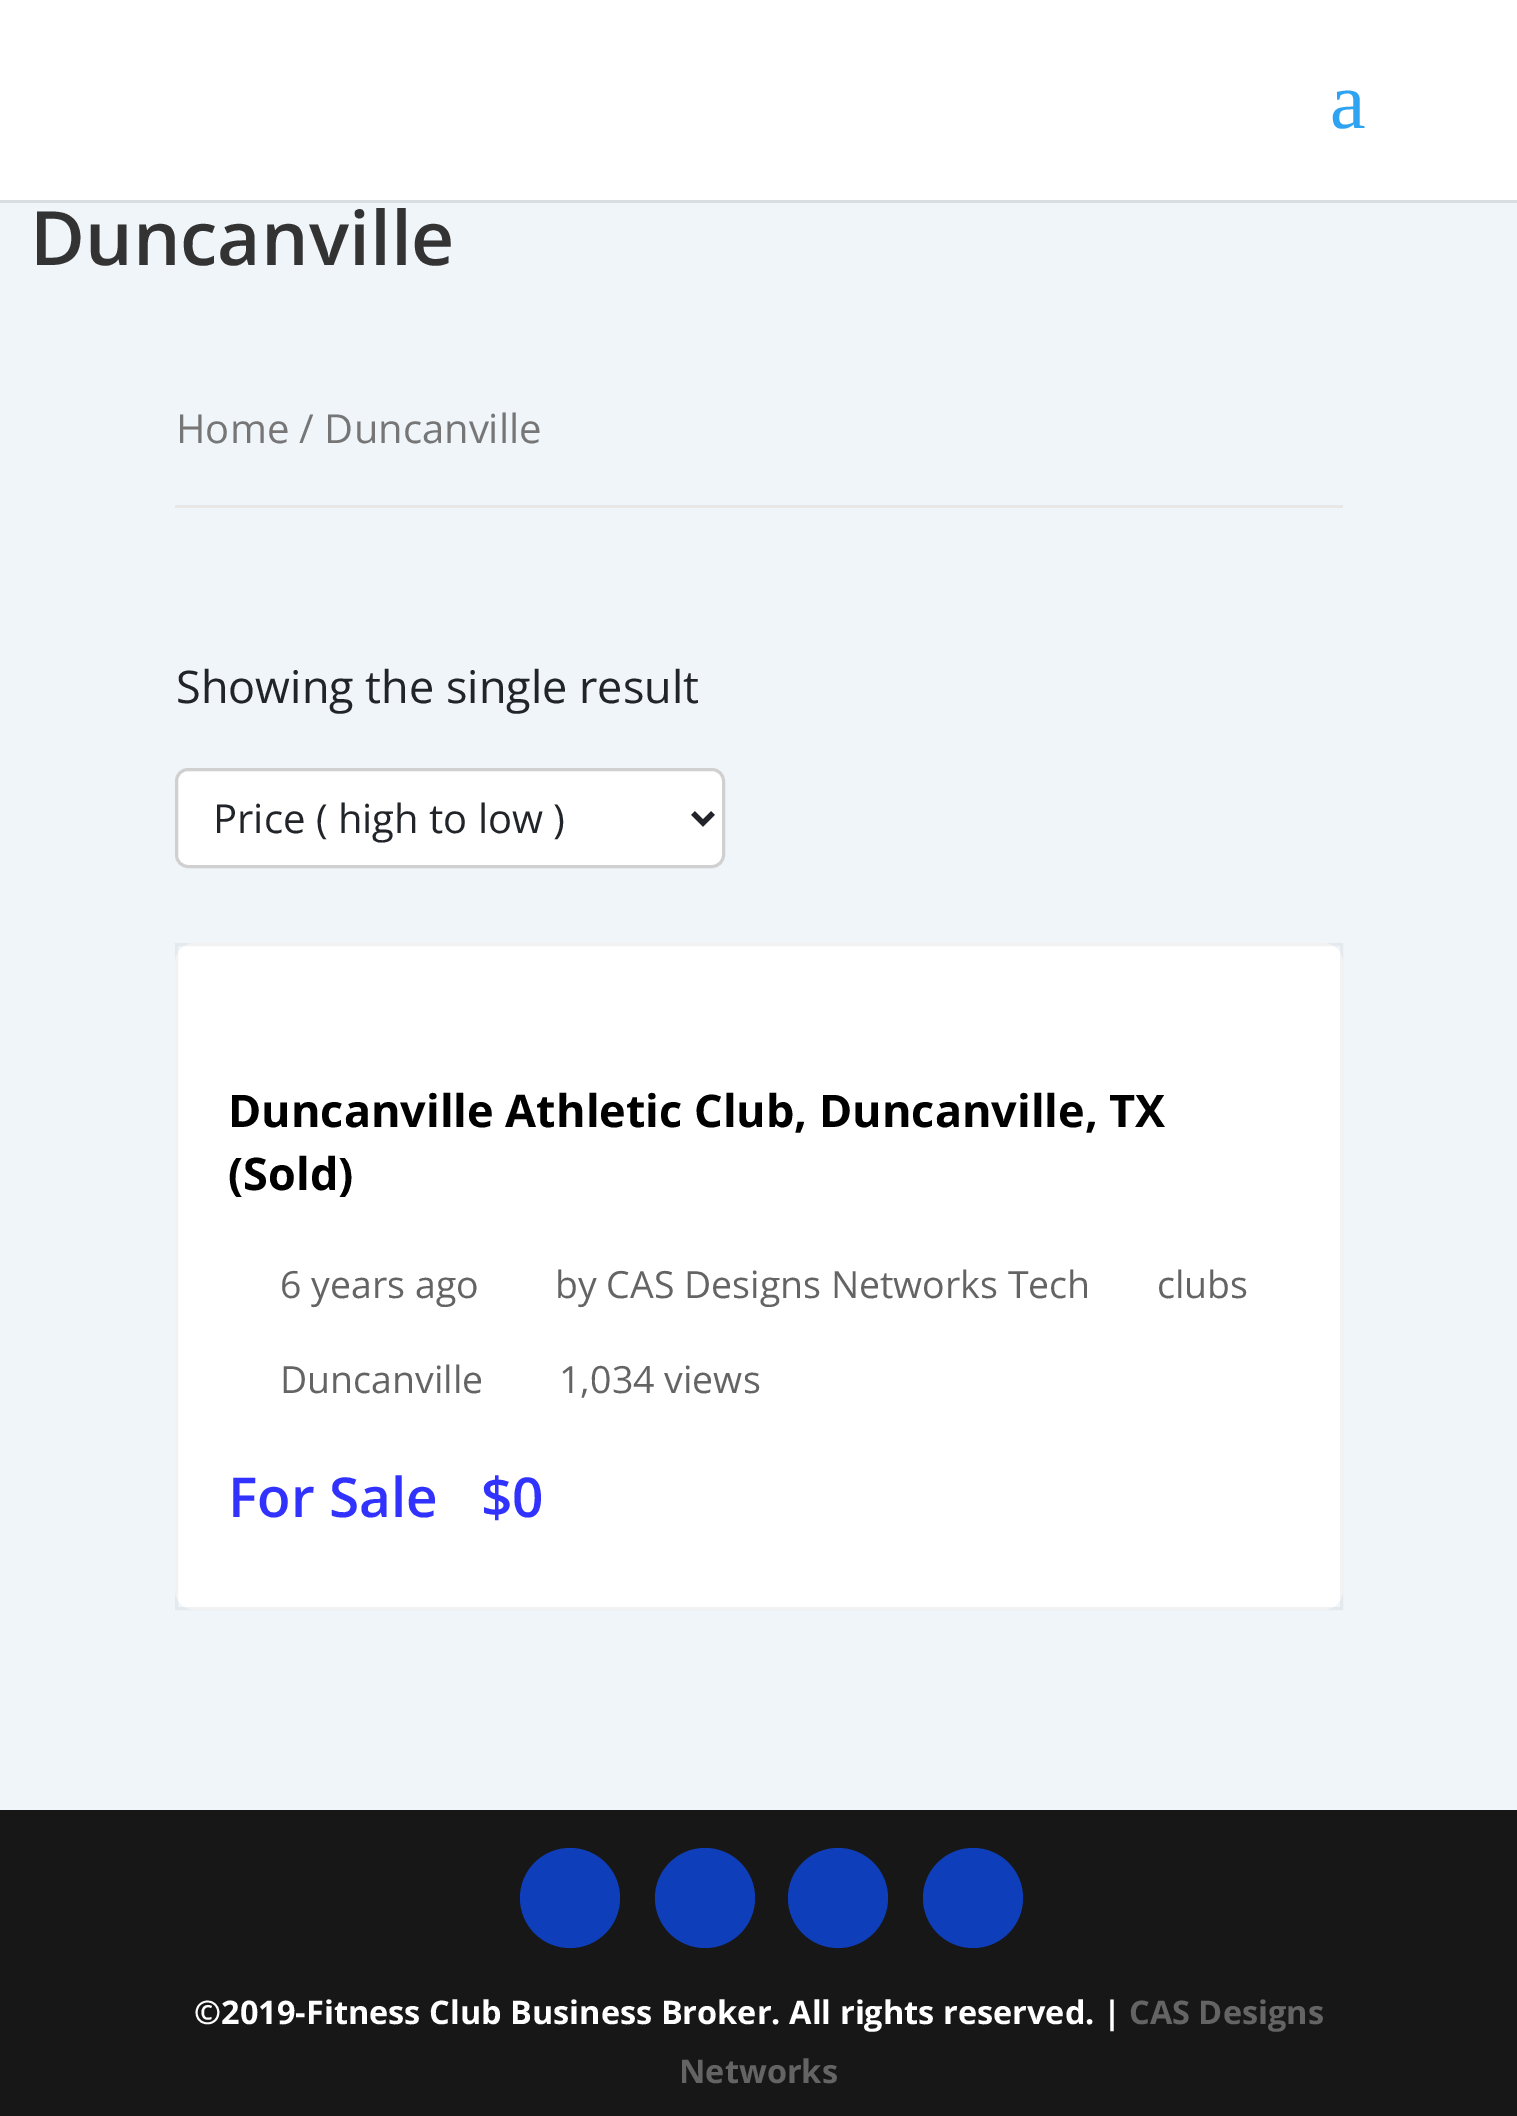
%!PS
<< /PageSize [1517 2116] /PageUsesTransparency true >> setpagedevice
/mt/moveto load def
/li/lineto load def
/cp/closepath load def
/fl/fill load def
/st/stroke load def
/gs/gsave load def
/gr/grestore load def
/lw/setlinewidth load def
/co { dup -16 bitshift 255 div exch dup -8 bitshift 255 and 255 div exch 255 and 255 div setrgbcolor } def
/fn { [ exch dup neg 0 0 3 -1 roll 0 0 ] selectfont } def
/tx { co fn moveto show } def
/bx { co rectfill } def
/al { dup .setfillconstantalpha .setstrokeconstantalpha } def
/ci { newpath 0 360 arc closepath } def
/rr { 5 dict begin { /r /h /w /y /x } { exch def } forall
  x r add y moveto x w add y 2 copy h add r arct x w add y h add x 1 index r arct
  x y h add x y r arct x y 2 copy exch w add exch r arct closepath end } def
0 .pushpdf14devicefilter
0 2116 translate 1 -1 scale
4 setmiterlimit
0 0 1517 2116 16#F0F5FA bx
16#D8DDE1 co
0 200 mt 0 203 li 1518 203 li 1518 3 li 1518 200 li cp fl
0 0 1517 200 16#FFFFFF bx
175 505 1168 3 16#E7E7E7 bx
16#FFFFFF co
176.5 769.5 547 97 11.5 rr gs fl gr
16#D0D0D0 co
3 lw
st
16#212529 co
5 lw
693 813 mt 703 823 li 713 813 li st
16#FFFFFF co
175 943 1168 667 20 rr fl
0.05 al
16#000000 co
3 lw
176.5 944.5 1165 664 rectstroke
1 al
0 1810 1517 306 16#171717 bx
16#0E3EBA co
570 1898 50 ci fl
705 1898 50 ci fl
838 1898 50 ci fl
973 1898 50 ci fl
(a) 1330 128 /LiberationSerif-Regular 80 16#2EA3F2 tx
(Duncanville) 30 265 /OpenSans-SemiBold 75 16#333333 tx
(Home / Duncanville) 176 443 /OpenSans-Regular 40 16#767676 tx
(Showing the single result) 176 703 /OpenSans-Regular 45 16#212529 tx
(Price \( high to low \)) 213 833 /OpenSans-Regular 40 16#212529 tx
(Duncanville Athletic Club, Duncanville, TX) 228 1127 /OpenSans-Bold 45 16#000000 tx
(\(Sold\)) 228 1190 /OpenSans-Bold 45 16#000000 tx
(6 years ago) 280 1298 /OpenSans-Regular 37.5 16#646464 tx
(by CAS Designs Networks Tech) 555 1298 /OpenSans-Regular 37.5 16#646464 tx
(clubs) 1157 1298 /OpenSans-Regular 37.5 16#646464 tx
(Duncanville) 280 1393 /OpenSans-Regular 37.5 16#646464 tx
(1,034 views) 559 1393 /OpenSans-Regular 37.5 16#646464 tx
(For Sale   $0) 228 1517 /OpenSans-SemiBold 55 16#3232FF tx
(©2019-Fitness Club Business Broker. All rights reserved. |) 194 2024 /OpenSans-Bold 32.5 16#FFFFFF tx
(CAS Designs) 1129 2024 /OpenSans-Bold 32.5 16#646464 tx
(Networks) 679 2083 /OpenSans-Bold 32.5 16#646464 tx
.poppdf14devicefilter showpage
